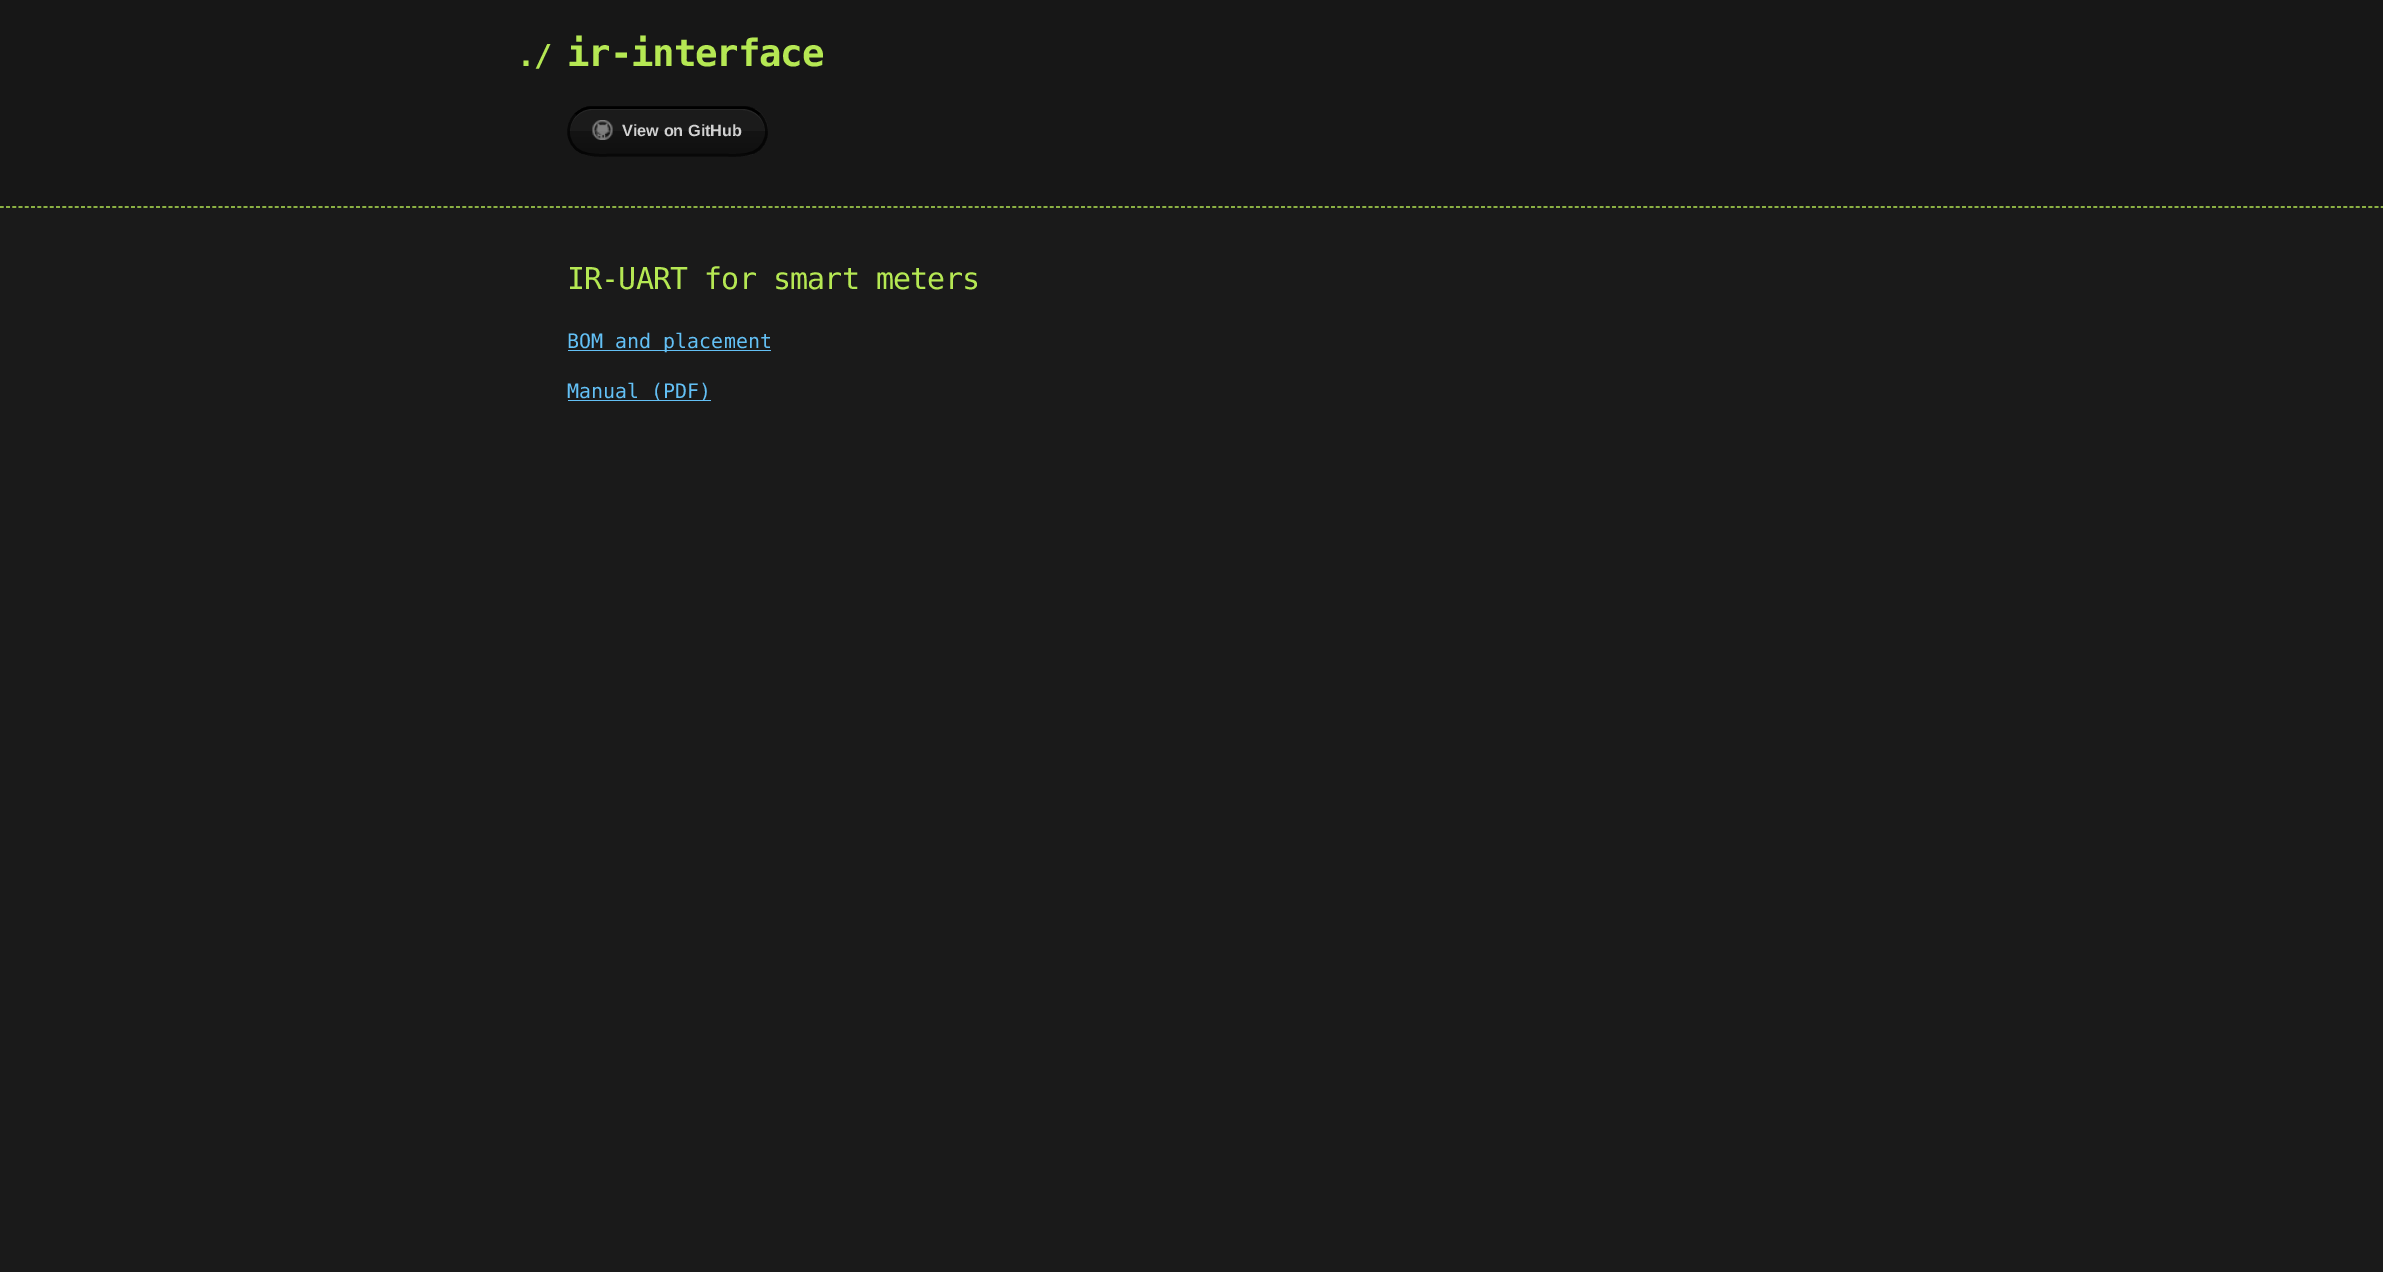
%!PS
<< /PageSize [2383 1272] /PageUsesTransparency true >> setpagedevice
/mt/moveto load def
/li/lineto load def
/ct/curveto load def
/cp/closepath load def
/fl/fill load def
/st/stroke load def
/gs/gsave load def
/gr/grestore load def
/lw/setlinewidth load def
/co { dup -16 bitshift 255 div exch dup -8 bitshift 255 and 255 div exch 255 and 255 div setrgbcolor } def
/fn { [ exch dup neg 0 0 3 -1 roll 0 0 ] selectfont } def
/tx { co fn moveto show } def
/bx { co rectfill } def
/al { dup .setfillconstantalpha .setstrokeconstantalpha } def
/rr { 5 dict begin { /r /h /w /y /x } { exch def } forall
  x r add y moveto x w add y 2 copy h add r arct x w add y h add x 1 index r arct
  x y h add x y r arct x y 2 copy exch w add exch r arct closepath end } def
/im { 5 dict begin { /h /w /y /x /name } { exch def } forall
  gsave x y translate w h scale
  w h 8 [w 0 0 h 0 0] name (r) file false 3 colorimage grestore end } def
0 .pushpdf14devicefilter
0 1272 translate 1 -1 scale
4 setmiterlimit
0 0 2383 1272 16#1A1A1A bx
0 0 2383 208 16#171717 bx
16#B5E853 co
1.2 lw
[3.75 2.5] 0 setdash
0 207 mt 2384 207 li st
gs
568 106 200 50 25 rr clip newpath
gs 581 106 mt 755 106 li 755 109 li 581 109 li cp clip newpath
<< /ShadingType 2 /ColorSpace /DeviceRGB /Coords [668 64 668 109] /Extend [true true] /Function << /FunctionType 3 /Domain [0 1] /Functions [<< /FunctionType 2 /Domain [0 1] /C0 [.11 .11 .11] /C1 [.106 .106 .106] /N 1 >> << /FunctionType 2 /Domain [0 1] /C0 [.075 .075 .075] /C1 [.063 .063 .063] /N 1 >>] /Bounds [.5] /Encode [0 1 0 1] >> >> shfill gr
gs 568 109 mt 768 109 li 768 154 li 568 154 li cp clip newpath
<< /ShadingType 2 /ColorSpace /DeviceRGB /Coords [668 109 668 154] /Extend [true true] /Function << /FunctionType 3 /Domain [0 1] /Functions [<< /FunctionType 2 /Domain [0 1] /C0 [.11 .11 .11] /C1 [.106 .106 .106] /N 1 >> << /FunctionType 2 /Domain [0 1] /C0 [.075 .075 .075] /C1 [.063 .063 .063] /N 1 >>] /Bounds [.5] /Encode [0 1 0 1] >> >> shfill gr
gs 583 154 mt 753 154 li 753 156 li 583 156 li cp clip newpath
<< /ShadingType 2 /ColorSpace /DeviceRGB /Coords [668 154 668 199] /Extend [true true] /Function << /FunctionType 3 /Domain [0 1] /Functions [<< /FunctionType 2 /Domain [0 1] /C0 [.11 .11 .11] /C1 [.106 .106 .106] /N 1 >> << /FunctionType 2 /Domain [0 1] /C0 [.075 .075 .075] /C1 [.063 .063 .063] /N 1 >>] /Bounds [.5] /Encode [0 1 0 1] >> >> shfill gr
gr
16#272727 co
592 110 mt 742 110 li 755 110 765 120 765 132 ct 765 119 755 109 742 109 ct 592 109 li 580 109 570 119 570 132 ct 570 120 580 110 592 110 ct cp fl
16#000000 co
2.5 lw
[] 0 setdash
575.5 114.5 mt 580 110 586 107.5 592.5 107.5 ct 742.5 107.5 li 749 107.5 755 110 759.5 114.5 ct st
0.7 al
759.5 114.5 mt 765 120 767.5 128 766 136 ct 761 159.5 735 155 717.5 155 ct 617.5 155 li 600 155 574 159.5 569 136 ct 567.5 128 570 120 575.5 114.5 ct st
1 al
(media/1.raw) 592 120 21 20 im
568 350 203 1 16#63C0F5 bx
568 400 143 1 16#63C0F5 bx
/DejaVuSansMono-Bold 30 fn
16#B5E853 co
517 66 mt -1.25 0 (./) ashow
/DejaVuSansMono-Bold 37.5 fn
567 66 mt -1.25 0 (ir-interface) ashow
(View on GitHub) 622 136 /LiberationSans-Bold 16.25 16#D1D1D1 tx
/DejaVuSansMono-Regular 30 fn
16#B5E853 co
567 289 mt -.9 0 (IR-UART for smart meters) ashow
(BOM and placement) 567 348 /DejaVuSansMono-Regular 20 16#63C0F5 tx
(Manual \(PDF\)) 567 398 /DejaVuSansMono-Regular 20 16#63C0F5 tx
.poppdf14devicefilter showpage
